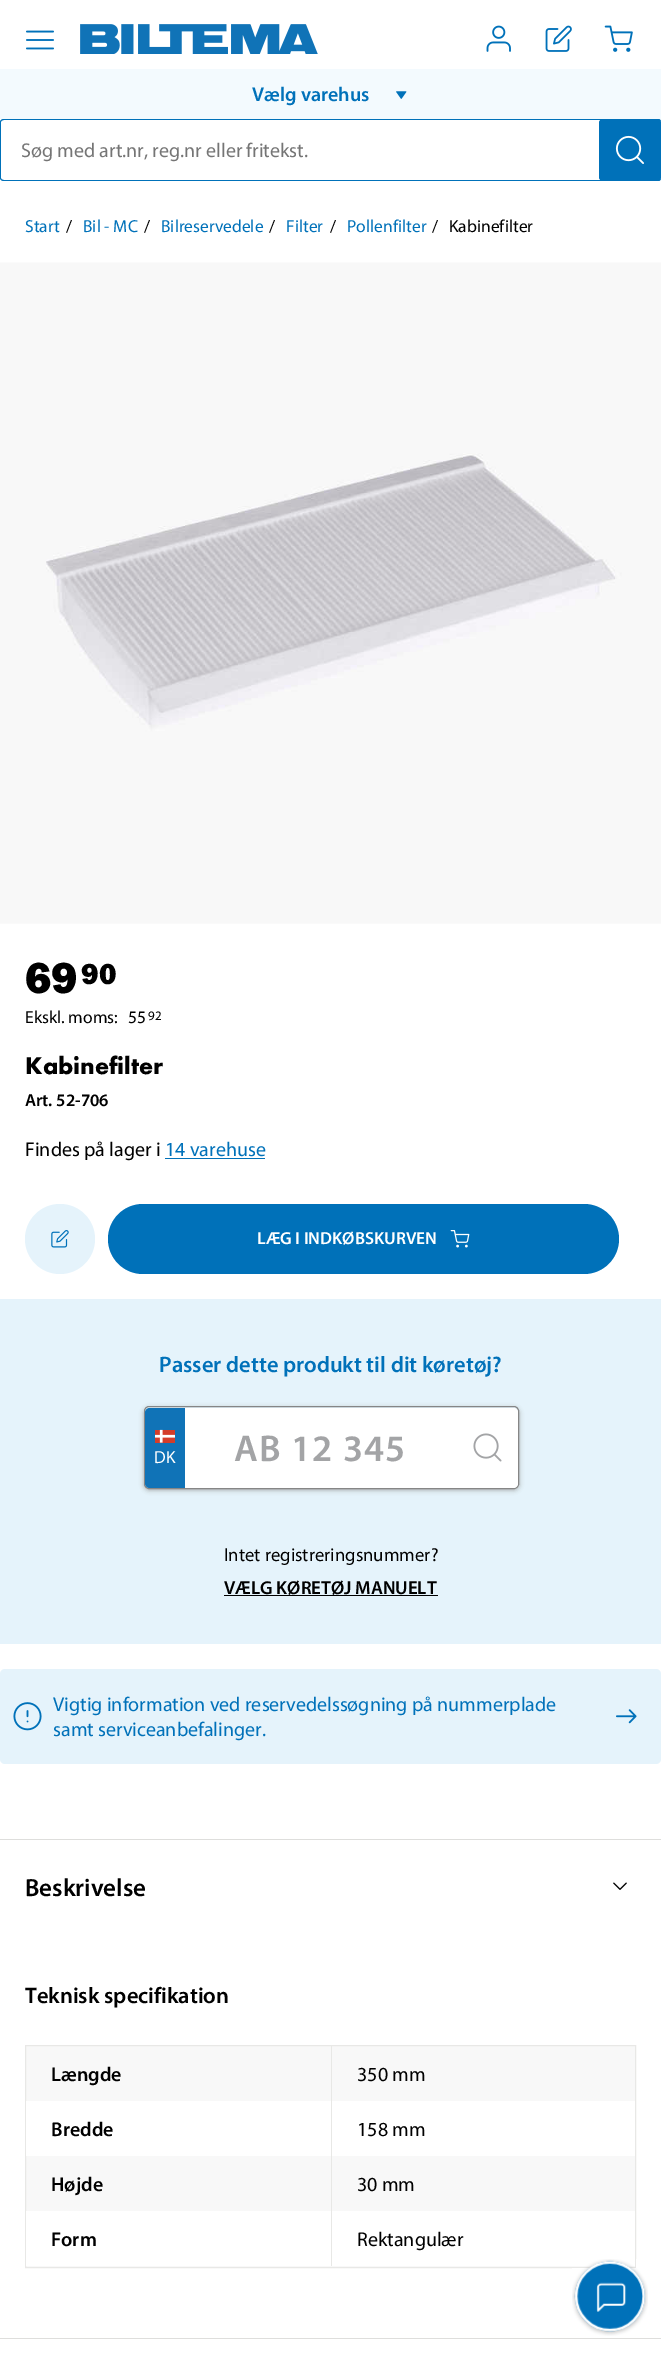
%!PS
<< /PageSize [661 2354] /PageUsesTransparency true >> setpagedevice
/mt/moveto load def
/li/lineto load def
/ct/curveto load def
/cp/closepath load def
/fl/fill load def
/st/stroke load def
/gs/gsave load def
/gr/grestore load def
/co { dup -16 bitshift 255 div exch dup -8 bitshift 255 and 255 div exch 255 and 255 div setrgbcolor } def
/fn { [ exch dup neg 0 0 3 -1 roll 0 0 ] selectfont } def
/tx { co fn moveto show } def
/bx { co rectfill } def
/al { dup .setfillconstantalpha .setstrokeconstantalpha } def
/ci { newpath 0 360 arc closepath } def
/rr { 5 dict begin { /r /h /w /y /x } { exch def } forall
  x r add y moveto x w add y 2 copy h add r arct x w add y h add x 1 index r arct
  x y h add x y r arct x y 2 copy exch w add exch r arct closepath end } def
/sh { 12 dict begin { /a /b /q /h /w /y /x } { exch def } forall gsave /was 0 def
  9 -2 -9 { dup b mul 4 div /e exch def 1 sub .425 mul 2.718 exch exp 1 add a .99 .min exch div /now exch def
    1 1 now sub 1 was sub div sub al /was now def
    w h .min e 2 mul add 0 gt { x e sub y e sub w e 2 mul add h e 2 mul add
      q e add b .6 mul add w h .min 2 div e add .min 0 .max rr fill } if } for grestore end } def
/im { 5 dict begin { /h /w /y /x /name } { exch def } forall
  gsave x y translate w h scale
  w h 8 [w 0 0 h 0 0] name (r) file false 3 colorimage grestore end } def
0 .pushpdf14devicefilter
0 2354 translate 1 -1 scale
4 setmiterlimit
0 0 661 2354 16#FFFFFF bx
(media/1.raw) 26 30 28 20 im
(media/2.raw) 80 24 238 30 im
(media/3.raw) 486 25 25 27 im
(media/4.raw) 545 25 27 27 im
(media/5.raw) 604 25 29 27 im
0 69 661 50 16#F3FAFE bx
(media/6.raw) 396 91 11 8 im
16#0071B9 co
4 119 mt 658 119 li 660 119 661 120 661 122 ct 661 178 li 661 180 660 181 658 181 ct 4 181 li 2 181 0 180 0 178 ct 0 122 li 0 120 2 119 4 119 ct cp 4 120 mt 658 120 li 660 120 661 121 661 122 ct 661 178 li 661 179 660 180 658 180 ct 4 180 li 2 180 1 179 1 178 ct 1 122 li 1 121 2 120 4 120 ct cp eofill
599 119 62 62 4 rr fl
(media/7.raw) 615 135 29 29 im
(media/8.raw) 0 262 661 662 im
165 1158 100 1 16#0071B9 bx
16#E5F3FB co
60 1239 35 ci fl
(media/9.raw) 51 1230 18 18 im
16#0071B9 co
108 1204 511 70 35 rr fl
(media/10.raw) 450 1230 20 18 im
0 1299 661 345 16#E5F3FB bx
gs
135 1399 mt 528 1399 li 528 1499 li 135 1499 li cp 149 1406 mt 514 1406 li 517 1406 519 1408 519 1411 ct 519 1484 li 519 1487 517 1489 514 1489 ct 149 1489 li 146 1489 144 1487 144 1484 ct 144 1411 li 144 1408 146 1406 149 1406 ct cp eoclip newpath
16#A3A4A6 co
144 1408 375 82 5 2.5 1 sh
gr
16#868686 co
144.5 1406.5 374 82 4.5 rr st
16#1073B7 co
150 1408 mt 185 1408 li 185 1488 li 150 1488 li 147 1488 145 1486 145 1483 ct 145 1413 li 145 1410 147 1408 150 1408 ct cp fl
(media/11.raw) 155 1429 20 14 im
185 1408 273 80 16#FFFFFF bx
458 1408 mt 513 1408 li 516 1408 518 1410 518 1413 ct 518 1483 li 518 1486 516 1488 513 1488 ct 458 1488 li cp fl
(media/12.raw) 473 1433 29 29 im
224 1595 214 1 16#000000 bx
16#E5F3FB co
0 1669 661 95 5 rr fl
(media/13.raw) 13 1702 29 29 im
(media/14.raw) 616 1709 21 15 im
0 1839 661 1 16#DEDEDC bx
0 2338 661 1 16#DEDEDC bx
(media/15.raw) 613 1882 14 8 im
16#F8F8F8 co
25.5 2045.5 mt 635.5 2045.5 li 635.5 2267.5 li 25.5 2267.5 li cp gs fl gr
16#E8E8E6 co
st
331 2046 1 55 16#E8E8E6 bx
26 2101 609 55 16#FFFFFF bx
331 2101 1 110 16#E8E8E6 bx
26 2211 609 55 16#FFFFFF bx
331 2211 1 55 16#E8E8E6 bx
(media/16.raw) 572 2259 76 77 im
(Vælg varehus) 252 101 /Myriad-SemiBold 20 16#0071B9 tx
(Søg med art.nr, reg.nr eller fritekst.) 21 157 /Myriad-Regular 20 16#757575 tx
(Start) 25 232 /Myriad-Regular 17.5 16#0071B9 tx
(/) 66 232 /Myriad-Regular 17.5 16#000000 tx
(Bil - MC) 83 232 /Myriad-Regular 17.5 16#0071B9 tx
(/) 144 232 /Myriad-Regular 17.5 16#000000 tx
(Bilreservedele) 161 232 /Myriad-Regular 17.5 16#0071B9 tx
(/) 269 232 /Myriad-Regular 17.5 16#000000 tx
(Filter) 286 232 /Myriad-Regular 17.5 16#0071B9 tx
(/) 330 232 /Myriad-Regular 17.5 16#000000 tx
(Pollenfilter) 347 232 /Myriad-Regular 17.5 16#0071B9 tx
(/) 432 232 /Myriad-Regular 17.5 16#000000 tx
(Kabinefilter) 449 232 /Myriad-Regular 17.5 16#000000 tx
(69) 25 993 /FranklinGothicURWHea-Black 45 16#000000 tx
(90) 81 984 /FranklinGothicURWHea-Black 30 16#000000 tx
(Ekskl. moms:) 25 1023 /Myriad-Regular 17.5 16#000000 tx
(55) 128 1023 /Myriad-Regular 17.5 16#000000 tx
(92) 148 1020 /Myriad-Regular 13 16#000000 tx
(Kabinefilter) 25 1074 /FuturaPT-Bold 25 16#000000 tx
(Art. 52-706) 25 1106 /Myriad-SemiBold 17.5 16#000000 tx
(Findes på lager i) 25 1156 /Myriad-Regular 20 16#000000 tx
(14 varehuse) 165 1156 /Myriad-Regular 20 16#0071B9 tx
(LÆG I INDKØBSKURVEN) 257 1244 /Myriad-SemiBold 17.5 16#FFFFFF tx
(Passer dette produkt til dit køretøj?) 159 1372 /Myriad-SemiBold 22.5 16#0071B9 tx
(DK) 154 1463 /Myriad-Regular 17.5 16#FFFFFF tx
/Myriad-SemiBold 37.5 fn
16#A3A4A6 co
234 1461 mt 1.25 0 (AB 12 345) ashow
(Intet registreringsnummer?) 224 1561 /Myriad-Regular 18.75 16#000000 tx
(VÆLG KØRETØJ MANUELT) 224 1594 /Myriad-SemiBold 18.75 16#000000 tx
(Vigtig information ved reservedelssøgning på nummerplade) 53 1711 /Myriad-Regular 20 16#0071B9 tx
(samt serviceanbefalinger.) 53 1736 /Myriad-Regular 20 16#0071B9 tx
(Beskrivelse) 25 1896 /Myriad-SemiBold 25 16#000000 tx
(Teknisk specifikation) 25 2003 /Myriad-SemiBold 22.5 16#000000 tx
(Længde) 51 2081 /Myriad-SemiBold 20 16#000000 tx
(350 mm) 357 2081 /Myriad-Regular 20 16#000000 tx
(Bredde) 51 2136 /Myriad-SemiBold 20 16#000000 tx
(158 mm) 357 2136 /Myriad-Regular 20 16#000000 tx
(Højde) 51 2191 /Myriad-SemiBold 20 16#000000 tx
(30 mm) 357 2191 /Myriad-Regular 20 16#000000 tx
(Form) 51 2246 /Myriad-SemiBold 20 16#000000 tx
(Rektangulær) 357 2246 /Myriad-Regular 20 16#000000 tx
.poppdf14devicefilter showpage
